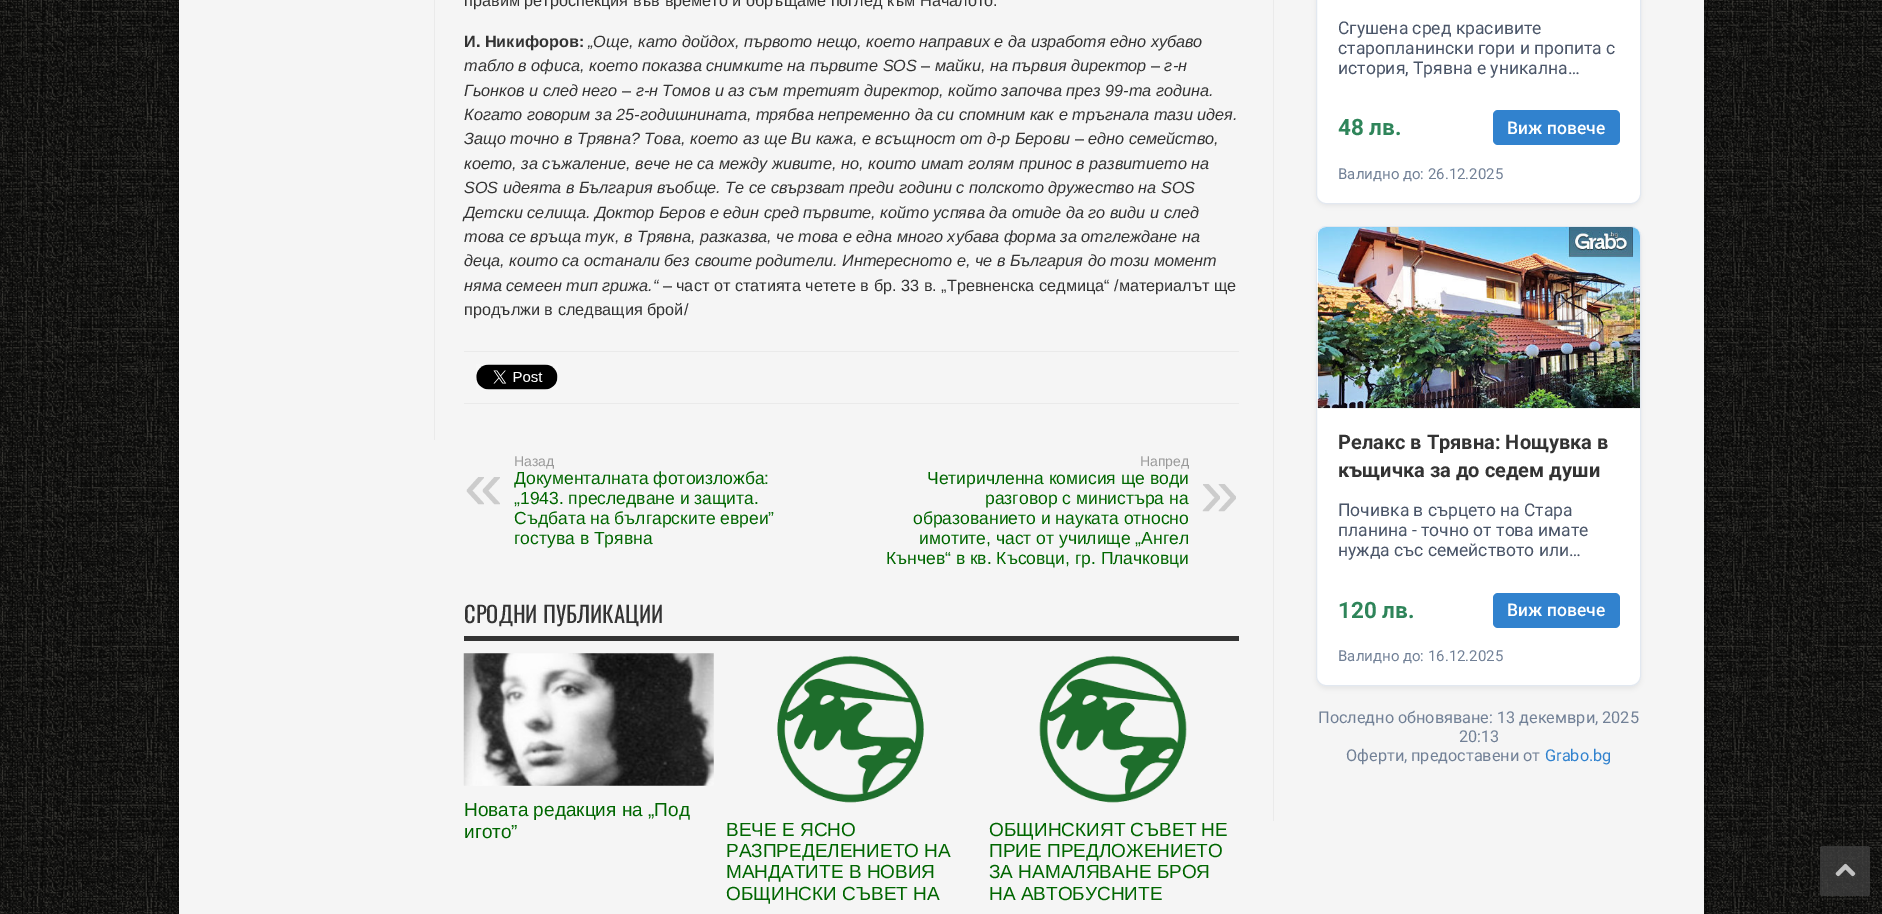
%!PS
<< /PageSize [1882 914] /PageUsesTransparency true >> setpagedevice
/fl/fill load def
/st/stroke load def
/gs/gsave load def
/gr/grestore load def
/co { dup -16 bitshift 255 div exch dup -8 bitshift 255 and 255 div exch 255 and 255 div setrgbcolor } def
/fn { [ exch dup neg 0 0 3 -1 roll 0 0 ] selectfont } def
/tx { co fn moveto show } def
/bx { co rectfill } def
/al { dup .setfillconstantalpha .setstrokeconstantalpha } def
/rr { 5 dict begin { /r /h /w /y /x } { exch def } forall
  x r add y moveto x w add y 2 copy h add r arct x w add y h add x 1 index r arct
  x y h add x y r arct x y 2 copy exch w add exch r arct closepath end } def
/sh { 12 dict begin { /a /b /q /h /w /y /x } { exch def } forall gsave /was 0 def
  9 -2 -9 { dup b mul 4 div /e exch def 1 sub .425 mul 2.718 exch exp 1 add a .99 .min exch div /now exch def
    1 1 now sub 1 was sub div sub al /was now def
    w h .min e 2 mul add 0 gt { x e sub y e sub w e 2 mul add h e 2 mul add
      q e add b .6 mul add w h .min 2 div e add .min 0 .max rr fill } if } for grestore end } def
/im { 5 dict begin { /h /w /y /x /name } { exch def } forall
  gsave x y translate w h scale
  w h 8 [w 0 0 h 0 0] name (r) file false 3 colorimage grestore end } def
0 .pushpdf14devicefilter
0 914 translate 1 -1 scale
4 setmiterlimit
0 0 1882 914 16#000000 bx
(media/1.raw) 0 0 1882 914 im
179 -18 1525 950 0 6 .5 sh
179 0 1525 914 16#F5F5F5 bx
434 0 1 440 16#EAEAEA bx
464 351 775 1 16#EAEAEA bx
464 403 775 1 16#EAEAEA bx
(media/2.raw) 476 364 82 26 im
464 636 775 5 16#333333 bx
(media/3.raw) 463 653 251 133 im
(media/4.raw) 777 655 147 148 im
(media/5.raw) 1039 655 148 148 im
1273 0 1 821 16#EAEAEA bx
16#000000 co
1316 -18 325 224 10 2.5 .05 sh
16#FFFFFF co
1316.5 -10.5 324 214 9.5 rr gs fl gr
16#E2E8F0 co
st
16#3182CE co
1493 110 127 35 5 rr fl
16#000000 co
1316 229 325 460 10 2.5 .05 sh
16#FFFFFF co
1316.5 226.5 324 459 9.5 rr gs fl gr
16#E2E8F0 co
st
(media/6.raw) 1317 227 323 182 im
16#3182CE co
1493 593 127 35 5 rr fl
0.7 al
16#444444 co
1820 846 50 50 2.5 rr fl
1 al
(media/7.raw) 1835 863 21 14 im
(правим ретроспекция във времето и обръщаме поглед към Началото.) 464 6 /LiberationSans-Regular 16.25 16#333333 tx
(И. Никифоров:) 464 47 /LiberationSans-Bold 16.25 16#333333 tx
(„Още, като дойдох, първото нещо, което направих е да изработя едно хубаво) 588 47 /LiberationSans-Italic 16.25 16#333333 tx
(табло в офиса, което показва снимките на първите SOS – майки, на първия директор – г-н) 464 71 /LiberationSans-Italic 16.25 16#333333 tx
(Гьонков и след него – г-н Томов и аз съм третият директор, който започва през 99-та година.) 464 96 /LiberationSans-Italic 16.25 16#333333 tx
(Когато говорим за 25-годишнината, трябва непременно да си спомним как е тръгнала тази идея.) 464 120 /LiberationSans-Italic 16.25 16#333333 tx
(Защо точно в Трявна? Това, което аз ще Ви кажа, е всъщност от д-р Берови – едно семейство,) 464 144 /LiberationSans-Italic 16.25 16#333333 tx
(което, за съжаление, вече не са между живите, но, които имат голям принос в развитието на) 464 169 /LiberationSans-Italic 16.25 16#333333 tx
(SOS идеята в България въобще. Те се свързват преди години с полското дружество на SOS) 464 193 /LiberationSans-Italic 16.25 16#333333 tx
(Детски селища. Доктор Беров е един сред първите, който успява да отиде да го види и след) 464 218 /LiberationSans-Italic 16.25 16#333333 tx
(това се връща тук, в Трявна, разказва, че това е една много хубава форма за отглеждане на) 464 242 /LiberationSans-Italic 16.25 16#333333 tx
(деца, които са останали без своите родители. Интересното е, че в България до този момент) 464 266 /LiberationSans-Italic 16.25 16#333333 tx
(няма семеен тип грижа.“ –) 464 291 /LiberationSans-Italic 16.25 16#333333 tx
(част от статията четете в бр. 33 в. „Тревненска седмица“ /материалът ще) 676 291 /LiberationSans-Regular 16.25 16#333333 tx
(продължи в следващия брой/) 464 315 /LiberationSans-Regular 16.25 16#333333 tx
(Назад) 514 466 /LiberationSans-Regular 14 16#999999 tx
(«) 464 509 /LiberationSans-Regular 70 16#CCCCCC tx
(Документалната фотоизложба:) 514 484 /LiberationSans-Regular 17.5 16#006600 tx
(„1943. преследване и защита.) 514 504 /LiberationSans-Regular 17.5 16#006600 tx
(Съдбата на българските евреи”) 514 524 /LiberationSans-Regular 17.5 16#006600 tx
(гостува в Трявна) 514 544 /LiberationSans-Regular 17.5 16#006600 tx
(Напред) 1140 466 /LiberationSans-Regular 14 16#999999 tx
(Четиричленна комисия ще води) 927 484 /LiberationSans-Regular 17.5 16#006600 tx
(разговор с министъра на) 985 504 /LiberationSans-Regular 17.5 16#006600 tx
(») 1200 516 /LiberationSans-Regular 70 16#CCCCCC tx
(образованието и науката относно) 913 524 /LiberationSans-Regular 17.5 16#006600 tx
(имотите, част от училище „Ангел) 919 544 /LiberationSans-Regular 17.5 16#006600 tx
(Кънчев“ в кв. Късовци, гр. Плачковци) 886 564 /LiberationSans-Regular 17.5 16#006600 tx
(СРОДНИ ПУБЛИКАЦИИ) 464 623 /Oswald-Regular 22.5 16#333333 tx
(Новата редакция на „Под) 464 816 /LiberationSans-Regular 19 16#006600 tx
(игото”) 464 838 /LiberationSans-Regular 19 16#006600 tx
(ВЕЧЕ Е ЯСНО) 726 836 /LiberationSans-Regular 19 16#006600 tx
(РАЗПРЕДЕЛЕНИЕТО НА) 726 857 /LiberationSans-Regular 19 16#006600 tx
(МАНДАТИТЕ В НОВИЯ) 726 878 /LiberationSans-Regular 19 16#006600 tx
(ОБЩИНСКИ СЪВЕТ НА) 726 900 /LiberationSans-Regular 19 16#006600 tx
(ОБЩИНСКИЯТ СЪВЕТ НЕ) 989 836 /LiberationSans-Regular 19 16#006600 tx
(ПРИЕ ПРЕДЛОЖЕНИЕТО) 989 857 /LiberationSans-Regular 19 16#006600 tx
(ЗА НАМАЛЯВАНЕ БРОЯ) 989 878 /LiberationSans-Regular 19 16#006600 tx
(НА АВТОБУСНИТЕ) 989 900 /LiberationSans-Regular 19 16#006600 tx
(Сгушена сред красивите) 1338 34 /Roboto-Regular 17.5 16#4A5568 tx
(старопланински гори и пропита с) 1338 54 /Roboto-Regular 17.5 16#4A5568 tx
(история, Трявна е уникална…) 1338 74 /Roboto-Regular 17.5 16#4A5568 tx
(48 лв.) 1338 135 /Roboto-Bold 22.5 16#2F855A tx
(Виж повече) 1507 134 /Roboto-Medium 17.5 16#FFFFFF tx
(Валидно до: 26.12.2025) 1338 179 /Roboto-Regular 15 16#718096 tx
(Релакс в Трявна: Нощувка в) 1338 449 /Roboto-Bold 20 16#333333 tx
(къщичка за до седем души) 1338 477 /Roboto-Bold 20 16#333333 tx
(Почивка в сърцето на Стара) 1338 516 /Roboto-Regular 17.5 16#4A5568 tx
(планина - точно от това имате) 1338 536 /Roboto-Regular 17.5 16#4A5568 tx
(нужда със семейството или…) 1338 556 /Roboto-Regular 17.5 16#4A5568 tx
(120 лв.) 1338 618 /Roboto-Bold 22.5 16#2F855A tx
(Виж повече) 1507 616 /Roboto-Medium 17.5 16#FFFFFF tx
(Валидно до: 16.12.2025) 1338 661 /Roboto-Regular 15 16#718096 tx
(Последно обновяване: 13 декември, 2025) 1318 723 /Roboto-Regular 16.25 16#718096 tx
(20:13) 1459 742 /Roboto-Regular 16.25 16#718096 tx
(Оферти, предоставени от) 1346 761 /Roboto-Regular 16.25 16#718096 tx
(Grabo.bg) 1545 761 /Roboto-Regular 16.25 16#3182CE tx
.poppdf14devicefilter showpage
